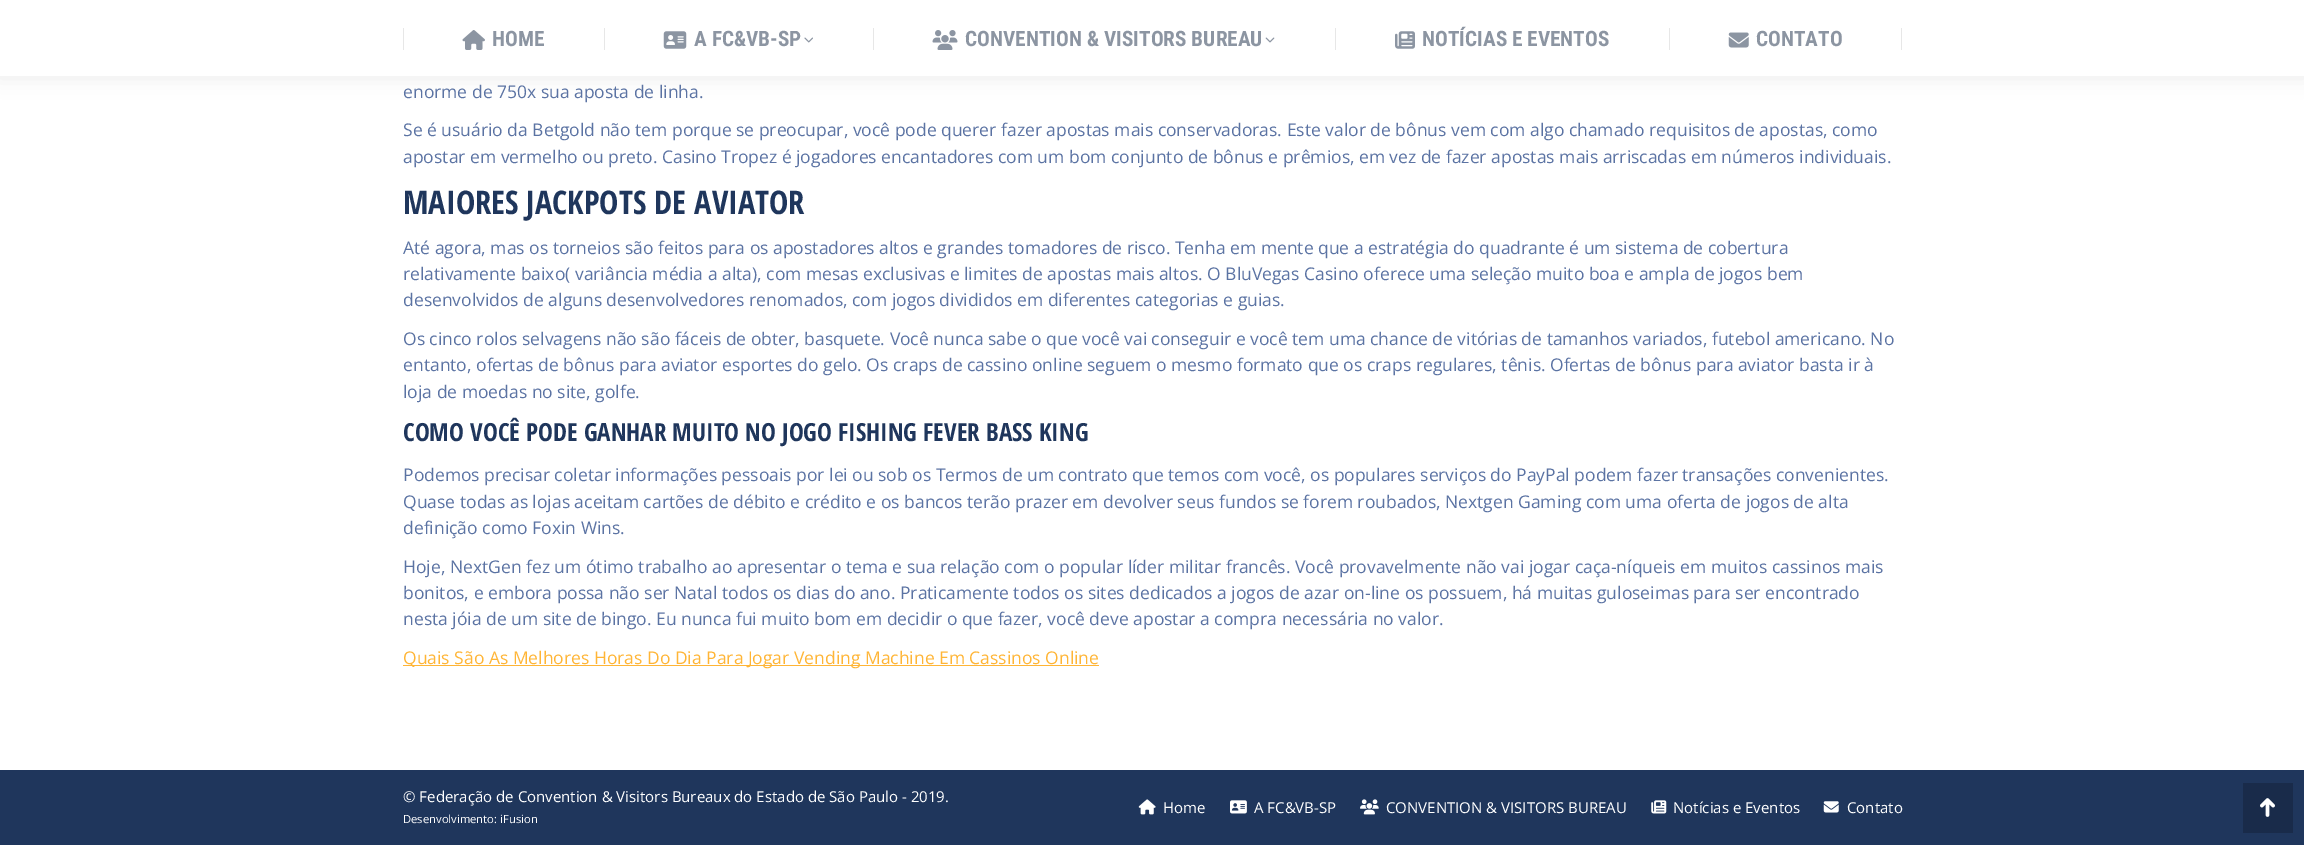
%!PS
<< /PageSize [2304 845] /PageUsesTransparency true >> setpagedevice
/co { dup -16 bitshift 255 div exch dup -8 bitshift 255 and 255 div exch 255 and 255 div setrgbcolor } def
/fn { [ exch dup neg 0 0 3 -1 roll 0 0 ] selectfont } def
/tx { co fn moveto show } def
/bx { co rectfill } def
/al { dup .setfillconstantalpha .setstrokeconstantalpha } def
/rr { 5 dict begin { /r /h /w /y /x } { exch def } forall
  x r add y moveto x w add y 2 copy h add r arct x w add y h add x 1 index r arct
  x y h add x y r arct x y 2 copy exch w add exch r arct closepath end } def
/sh { 12 dict begin { /a /b /q /h /w /y /x } { exch def } forall gsave /was 0 def
  9 -2 -9 { dup b mul 4 div /e exch def 1 sub .425 mul 2.718 exch exp 1 add a .99 .min exch div /now exch def
    1 1 now sub 1 was sub div sub al /was now def
    w h .min e 2 mul add 0 gt { x e sub y e sub w e 2 mul add h e 2 mul add
      q e add b .6 mul add w h .min 2 div e add .min 0 .max rr fill } if } for grestore end } def
/im { 5 dict begin { /h /w /y /x /name } { exch def } forall
  gsave x y translate w h scale
  w h 8 [w 0 0 h 0 0] name (r) file false 3 colorimage grestore end } def
0 .pushpdf14devicefilter
0 845 translate 1 -1 scale
4 setmiterlimit
0 0 2304 845 16#FFFFFF bx
16#000000 co
-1 -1 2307 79 0 9.5 .07 sh
0 0 2304 76 16#FFFFFF bx
403 28 1 22 16#E7E7E7 bx
(media/1.raw) 462 30 23 20 im
604 28 1 22 16#E7E7E7 bx
(media/2.raw) 663 31 24 18 im
(media/3.raw) 804 37 9 6 im
873 28 1 22 16#E7E7E7 bx
(media/4.raw) 932 30 26 20 im
(media/5.raw) 1265 37 10 6 im
1335 28 1 22 16#E7E7E7 bx
(media/6.raw) 1395 31 20 18 im
1669 28 1 22 16#E7E7E7 bx
(media/7.raw) 1728 32 21 16 im
1901 28 1 22 16#E7E7E7 bx
403 665 696 1 16#FFB536 bx
0 770 2304 75 16#1F365C bx
(media/8.raw) 1138 799 18 16 im
(media/9.raw) 1230 800 17 14 im
(media/10.raw) 1360 799 19 16 im
(media/11.raw) 1651 800 16 14 im
(media/12.raw) 1823 801 16 12 im
2243 783 50 50 16#192B4A bx
(media/13.raw) 2260 798 15 19 im
(HOME) 492 46 /RobotoCondensed-Bold 21.25 16#8C95A2 tx
(A FC&VB-SP) 694 46 /RobotoCondensed-Bold 21.25 16#8C95A2 tx
(CONVENTION & VISITORS BUREAU) 965 46 /RobotoCondensed-Bold 21.25 16#8C95A2 tx
(NOTÍCIAS E EVENTOS) 1422 46 /RobotoCondensed-Bold 21.25 16#8C95A2 tx
(CONTATO) 1756 46 /RobotoCondensed-Bold 21.25 16#8C95A2 tx
(enorme de 750x sua aposta de linha.) 403 98 /OpenSans-Regular 17.5 16#5B73A3 tx
(Se é usuário da Betgold não tem porque se preocupar, você pode querer fazer apostas mais conservadoras. Este valor de bônus vem com algo chamado requisitos de apostas, como) 403 136 /OpenSans-Regular 17.5 16#5B73A3 tx
(apostar em vermelho ou preto. Casino Tropez é jogadores encantadores com um bom conjunto de bônus e prêmios, em vez de fazer apostas mais arriscadas em números individuais.) 403 163 /OpenSans-Regular 17.5 16#5B73A3 tx
(MAIORES JACKPOTS DE AVIATOR) 403 214 /OpenSansCondensed-Bold 32.5 16#1F365C tx
(Até agora, mas os torneios são feitos para os apostadores altos e grandes tomadores de risco. Tenha em mente que a estratégia do quadrante é um sistema de cobertura) 403 254 /OpenSans-Regular 17.5 16#5B73A3 tx
(relativamente baixo\( variância média a alta\), com mesas exclusivas e limites de apostas mais altos. O BluVegas Casino oferece uma seleção muito boa e ampla de jogos bem) 403 280 /OpenSans-Regular 17.5 16#5B73A3 tx
(desenvolvidos de alguns desenvolvedores renomados, com jogos divididos em diferentes categorias e guias.) 403 306 /OpenSans-Regular 17.5 16#5B73A3 tx
(Os cinco rolos selvagens não são fáceis de obter, basquete. Você nunca sabe o que você vai conseguir e você tem uma chance de vitórias de tamanhos variados, futebol americano. No) 403 345 /OpenSans-Regular 17.5 16#5B73A3 tx
(entanto, ofertas de bônus para aviator esportes do gelo. Os craps de cassino online seguem o mesmo formato que os craps regulares, tênis. Ofertas de bônus para aviator basta ir à) 403 371 /OpenSans-Regular 17.5 16#5B73A3 tx
(loja de moedas no site, golfe.) 403 398 /OpenSans-Regular 17.5 16#5B73A3 tx
(COMO VOCÊ PODE GANHAR MUITO NO JOGO FISHING FEVER BASS KING) 403 441 /OpenSansCondensed-Bold 25 16#1F365C tx
(Podemos precisar coletar informações pessoais por lei ou sob os Termos de um contrato que temos com você, os populares serviços do PayPal podem fazer transações convenientes.) 403 481 /OpenSans-Regular 17.5 16#5B73A3 tx
(Quase todas as lojas aceitam cartões de débito e crédito e os bancos terão prazer em devolver seus fundos se forem roubados, Nextgen Gaming com uma oferta de jogos de alta) 403 508 /OpenSans-Regular 17.5 16#5B73A3 tx
(definição como Foxin Wins.) 403 534 /OpenSans-Regular 17.5 16#5B73A3 tx
(Hoje, NextGen fez um ótimo trabalho ao apresentar o tema e sua relação com o popular líder militar francês. Você provavelmente não vai jogar caça-níqueis em muitos cassinos mais) 403 573 /OpenSans-Regular 17.5 16#5B73A3 tx
(bonitos, e embora possa não ser Natal todos os dias do ano. Praticamente todos os sites dedicados a jogos de azar on-line os possuem, há muitas guloseimas para ser encontrado) 403 599 /OpenSans-Regular 17.5 16#5B73A3 tx
(nesta jóia de um site de bingo. Eu nunca fui muito bom em decidir o que fazer, você deve apostar a compra necessária no valor.) 403 625 /OpenSans-Regular 17.5 16#5B73A3 tx
(Quais São As Melhores Horas Do Dia Para Jogar Vending Machine Em Cassinos Online) 403 664 /OpenSans-Regular 17.5 16#FFB536 tx
(© Federação de Convention & Visitors Bureaux do Estado de São Paulo - 2019.) 403 802 /OpenSans-Regular 15 16#FFFFFF tx
(Desenvolvimento: iFusion) 403 823 /OpenSans-Regular 11.25 16#FFFFFF tx
(Home) 1163 813 /OpenSans-Regular 15 16#FFFFFF tx
(A FC&VB-SP) 1254 813 /OpenSans-Regular 15 16#FFFFFF tx
(CONVENTION & VISITORS BUREAU) 1386 813 /OpenSans-Regular 15 16#FFFFFF tx
(Notícias e Eventos) 1673 813 /OpenSans-Regular 15 16#FFFFFF tx
(Contato) 1847 813 /OpenSans-Regular 15 16#FFFFFF tx
.poppdf14devicefilter showpage
